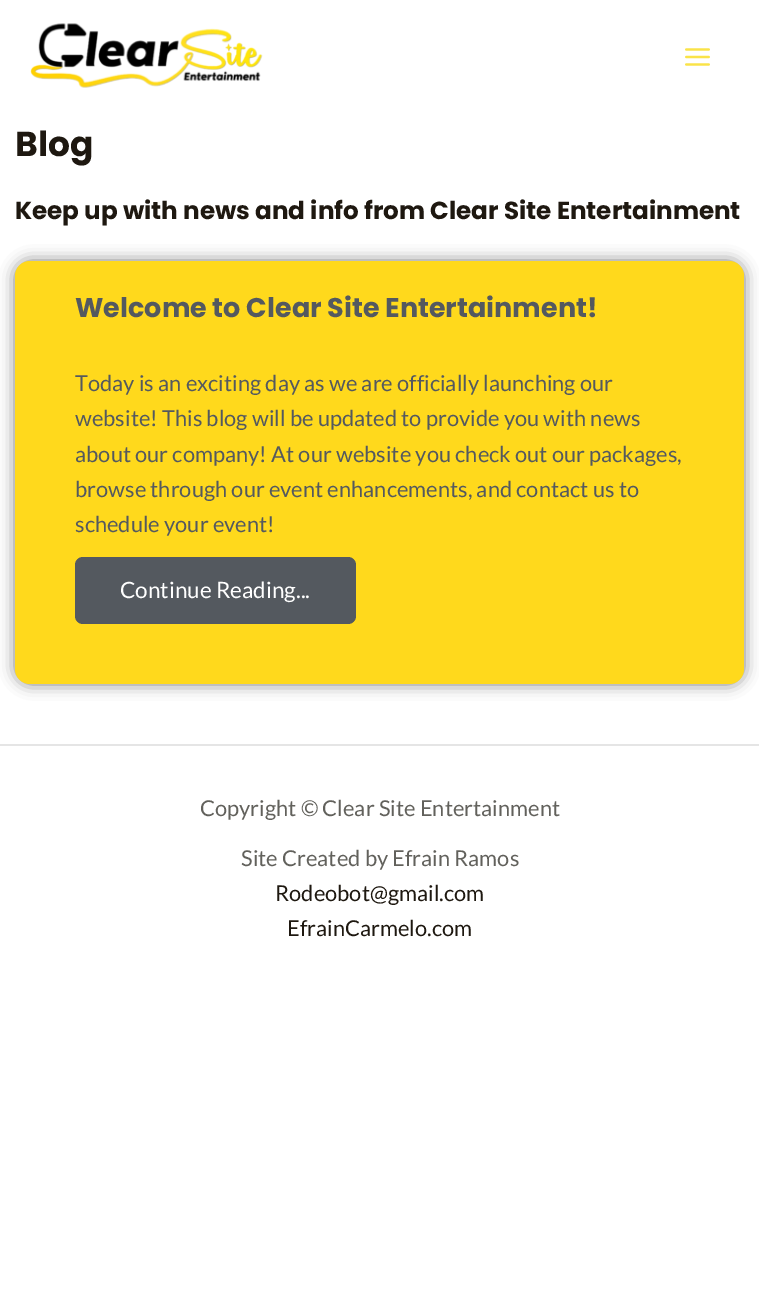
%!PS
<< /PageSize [759 1292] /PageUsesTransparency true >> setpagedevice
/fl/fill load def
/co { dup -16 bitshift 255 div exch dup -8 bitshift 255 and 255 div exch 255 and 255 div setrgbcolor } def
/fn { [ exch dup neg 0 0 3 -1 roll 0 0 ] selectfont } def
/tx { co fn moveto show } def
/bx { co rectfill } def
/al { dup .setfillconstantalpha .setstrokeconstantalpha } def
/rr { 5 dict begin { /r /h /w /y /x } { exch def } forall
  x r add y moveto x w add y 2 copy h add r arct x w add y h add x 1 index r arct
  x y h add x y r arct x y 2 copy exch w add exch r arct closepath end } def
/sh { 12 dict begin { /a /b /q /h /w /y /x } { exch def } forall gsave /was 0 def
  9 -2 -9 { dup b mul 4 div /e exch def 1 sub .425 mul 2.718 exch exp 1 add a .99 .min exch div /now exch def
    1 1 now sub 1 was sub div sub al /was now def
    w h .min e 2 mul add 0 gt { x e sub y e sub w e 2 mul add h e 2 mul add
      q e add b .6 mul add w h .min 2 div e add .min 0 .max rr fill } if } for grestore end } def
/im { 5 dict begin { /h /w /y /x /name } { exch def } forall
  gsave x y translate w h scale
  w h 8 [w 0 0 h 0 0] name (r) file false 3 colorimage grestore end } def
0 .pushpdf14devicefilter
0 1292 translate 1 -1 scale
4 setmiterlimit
0 0 759 1292 16#FFFFFF bx
(media/1.raw) 30 23 233 65 im
(media/2.raw) 685 48 25 18 im
16#000000 co
15 261 729 423 15 7.5 .5 sh
16#FFD91C co
15 261 729 423 15 rr fl
16#54595F co
75 557 281 67 8 rr fl
0 744 759 2 16#E5E5E5 bx
(Blog) 15 156 /Poppins-Bold 34.5 16#1E1810 tx
(Keep up with news and info from Clear Site Entertainment) 15 219 /Poppins-Bold 24.6 16#1E1810 tx
(Welcome to Clear Site Entertainment!) 75 317 /Poppins-Bold 27 16#54595F tx
(Today is an exciting day as we are officially launching our) 75 391 /Lato-Regular 21.9 16#54595F tx
(website! This blog will be updated to provide you with news) 75 426 /Lato-Regular 21.9 16#54595F tx
(about our company! At our website you check out our packages,) 75 462 /Lato-Regular 21.9 16#54595F tx
(browse through our event enhancements, and contact us to) 75 497 /Lato-Regular 21.9 16#54595F tx
(schedule your event!) 75 532 /Lato-Regular 21.9 16#54595F tx
(Continue Reading...) 120 598 /Lato-Regular 22.5 16#FFFFFF tx
(Copyright © Clear Site Entertainment) 200 816 /Lato-Regular 21.9 16#62615C tx
(Site Created by Efrain Ramos) 241 866 /Lato-Regular 21.9 16#62615C tx
(Rodeobot@gmail.com) 275 901 /Lato-Regular 21.9 16#1E1810 tx
(EfrainCarmelo.com) 287 936 /Lato-Regular 21.9 16#1E1810 tx
.poppdf14devicefilter showpage
